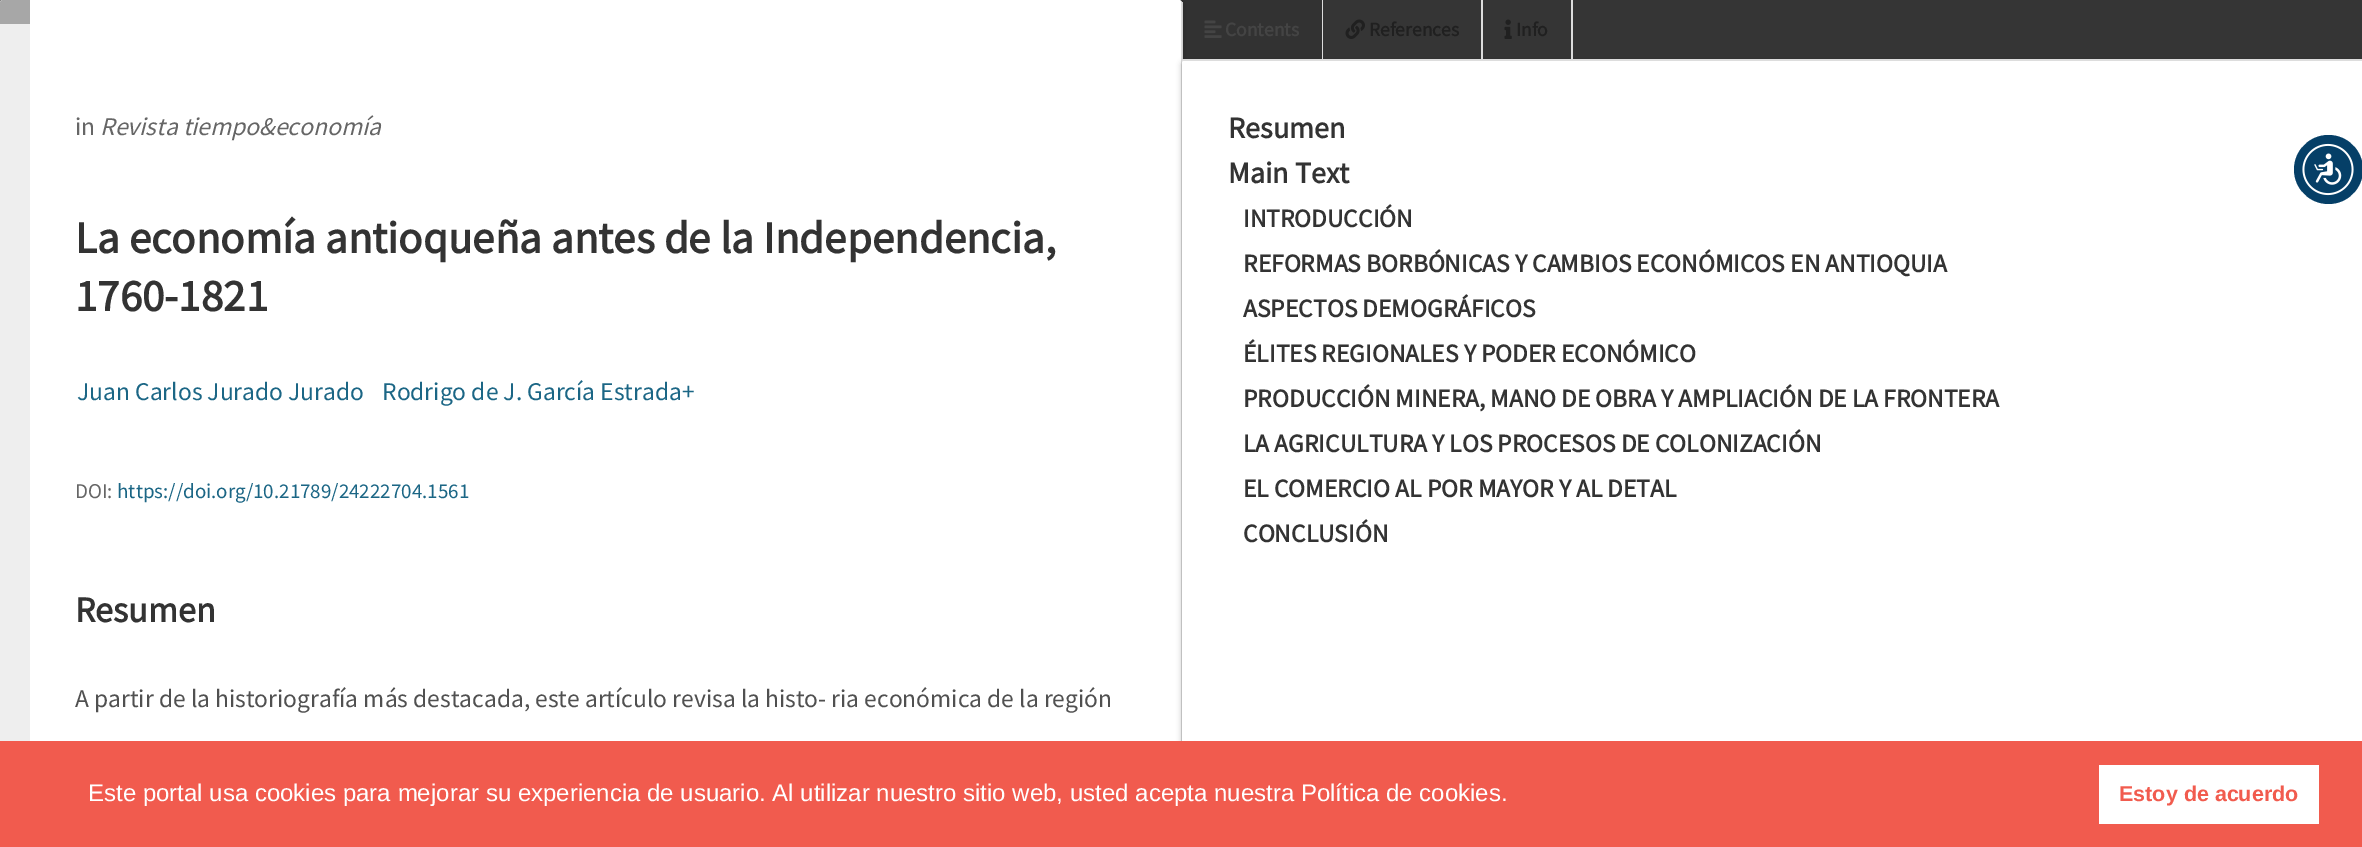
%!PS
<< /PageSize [2362 847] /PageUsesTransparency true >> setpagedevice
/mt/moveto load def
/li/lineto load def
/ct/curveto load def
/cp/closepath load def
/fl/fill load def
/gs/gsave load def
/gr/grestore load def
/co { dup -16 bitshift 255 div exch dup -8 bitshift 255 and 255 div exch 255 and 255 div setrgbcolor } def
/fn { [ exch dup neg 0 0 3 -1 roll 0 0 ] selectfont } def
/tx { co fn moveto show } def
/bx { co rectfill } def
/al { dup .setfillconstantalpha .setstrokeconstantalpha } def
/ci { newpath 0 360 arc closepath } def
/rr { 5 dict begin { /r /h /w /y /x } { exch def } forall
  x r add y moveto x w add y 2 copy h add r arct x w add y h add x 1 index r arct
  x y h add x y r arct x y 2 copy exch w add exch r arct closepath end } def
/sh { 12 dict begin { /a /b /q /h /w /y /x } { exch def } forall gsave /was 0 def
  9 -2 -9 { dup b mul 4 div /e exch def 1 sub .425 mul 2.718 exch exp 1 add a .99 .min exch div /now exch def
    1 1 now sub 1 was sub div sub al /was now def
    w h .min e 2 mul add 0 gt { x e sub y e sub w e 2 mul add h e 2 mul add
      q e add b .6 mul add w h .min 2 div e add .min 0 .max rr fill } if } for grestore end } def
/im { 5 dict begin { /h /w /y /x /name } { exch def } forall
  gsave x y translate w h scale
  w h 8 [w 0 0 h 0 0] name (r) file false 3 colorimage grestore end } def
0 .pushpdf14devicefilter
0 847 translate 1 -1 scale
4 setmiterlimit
0 0 2362 847 16#353535 bx
16#000000 co
0 2 1182 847 3 3 .3 sh
16#FFFFFF co
0 0 1182 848 3 rr fl
1181 2 2 739 16#DDDDDD bx
16#FFFFFF co
3 0 mt 1 0 0 1 0 3 ct 0 844 li 0 846 1 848 3 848 ct 1179 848 li 1180 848 1180 846 1180 844 ct 1180 3 li 1180 1 1180 0 1179 0 ct cp fl
16#EEEEEE co
3 0 mt 1 0 0 1 0 3 ct 0 844 li 0 846 1 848 3 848 ct 30 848 li 30 0 li cp fl
16#A7A7A7 co
3 0 mt 1.5 0 0 1.5 0 3 ct 0 24 li 30 24 li 30 0 li cp fl
16#FFFFFF co
1151 0 mt 1151 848 li 1179 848 li 1180 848 1180 846 1180 844 ct 1180 3 li 1180 1 1180 0 1179 0 ct cp fl
16#000000 co
1182 62 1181 742 3 3 .3 sh
16#FFFFFF co
1182 60 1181 743 3 rr fl
1182 59 1180 2 16#DDDDDD bx
0.05 al
1182 0 140 59 16#000000 bx
gs
1182 0 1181 59 rectclip
1 al
16#DDDDDD co
1323 0 mt 1323 64 li 1322 60 li 1322 0 li cp fl
gr
1 al
(media/1.raw) 1204 20 18 18 im
1481 0 2 59 16#DDDDDD bx
(media/2.raw) 1345 19 20 20 im
1571 0 2 59 16#DDDDDD bx
(media/3.raw) 1504 19 8 20 im
16#053F67 co
2328.5 169.5 34.5 ci fl
(media/4.raw) 2302 143 52 53 im
0 741 2362 106 16#F15B4E bx
2099 765 220 59 16#FFFFFF bx
(in) 75 135 /SourceSansPro-Regular 25.5 16#666666 tx
(Revista tiempo&economía) 100 135 /SourceSansPro-Italic 25.5 16#666666 tx
(La economía antioqueña antes de la Independencia,) 75 253 /SourceSansPro-Bold 45 16#333333 tx
(1760-1821) 75 311 /SourceSansPro-Bold 45 16#333333 tx
(Juan Carlos Jurado Jurado) 77 400 /SourceSansPro-Regular 25.5 16#1B6685 tx
(Rodrigo de J. García Estrada+) 382 400 /SourceSansPro-Regular 25.5 16#1B6685 tx
(DOI:) 75 498 /SourceSansPro-Regular 21 16#666666 tx
(https://doi.org/10.21789/24222704.1561) 117 498 /SourceSansPro-Regular 21 16#1B6685 tx
(Resumen) 75 622 /SourceSansPro-Bold 36 16#333333 tx
(A partir de la historiografía más destacada, este artículo revisa la histo- ria económica de la región) 75 707 /SourceSansPro-Regular 25.5 16#505050 tx
(Contents) 1225 36 /SourceSansPro-Bold 19.5 16#444444 tx
(References) 1369 36 /SourceSansPro-Bold 19.5 16#202020 tx
(Info) 1516 36 /SourceSansPro-Bold 19.5 16#202020 tx
(Resumen) 1228 138 /SourceSansPro-Bold 30 16#333333 tx
(Main Text) 1228 183 /SourceSansPro-Bold 30 16#333333 tx
(INTRODUCCIÓN) 1243 227 /SourceSansPro-Bold 25.5 16#333333 tx
(REFORMAS BORBÓNICAS Y CAMBIOS ECONÓMICOS EN ANTIOQUIA) 1243 272 /SourceSansPro-Bold 25.5 16#333333 tx
(ASPECTOS DEMOGRÁFICOS) 1243 317 /SourceSansPro-Bold 25.5 16#333333 tx
(ÉLITES REGIONALES Y PODER ECONÓMICO) 1243 362 /SourceSansPro-Bold 25.5 16#333333 tx
(PRODUCCIÓN MINERA, MANO DE OBRA Y AMPLIACIÓN DE LA FRONTERA) 1243 407 /SourceSansPro-Bold 25.5 16#333333 tx
(LA AGRICULTURA Y LOS PROCESOS DE COLONIZACIÓN) 1243 452 /SourceSansPro-Bold 25.5 16#333333 tx
(EL COMERCIO AL POR MAYOR Y AL DETAL) 1243 497 /SourceSansPro-Bold 25.5 16#333333 tx
(CONCLUSIÓN) 1243 542 /SourceSansPro-Bold 25.5 16#333333 tx
(Este portal usa cookies para mejorar su experiencia de usuario. Al utilizar nuestro sitio web, usted acepta nuestra Política de cookies.) 88 801 /LiberationSans-Regular 24 16#FFFFFF tx
(Estoy de acuerdo) 2119 801 /LiberationSans-Bold 21.5 16#F15B4E tx
.poppdf14devicefilter showpage
